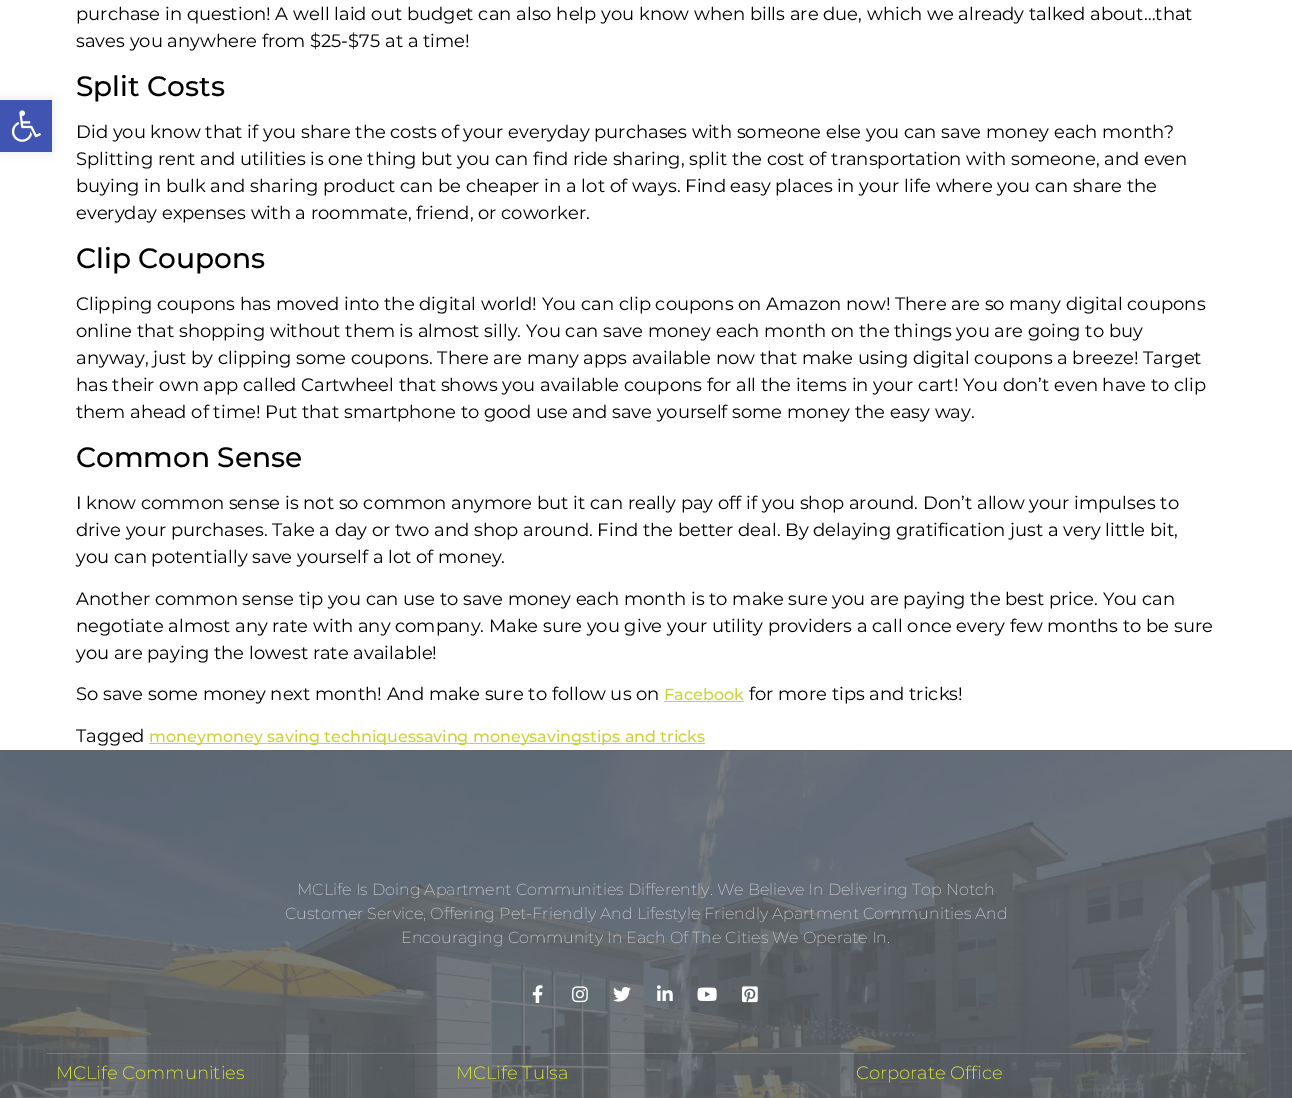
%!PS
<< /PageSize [1292 1098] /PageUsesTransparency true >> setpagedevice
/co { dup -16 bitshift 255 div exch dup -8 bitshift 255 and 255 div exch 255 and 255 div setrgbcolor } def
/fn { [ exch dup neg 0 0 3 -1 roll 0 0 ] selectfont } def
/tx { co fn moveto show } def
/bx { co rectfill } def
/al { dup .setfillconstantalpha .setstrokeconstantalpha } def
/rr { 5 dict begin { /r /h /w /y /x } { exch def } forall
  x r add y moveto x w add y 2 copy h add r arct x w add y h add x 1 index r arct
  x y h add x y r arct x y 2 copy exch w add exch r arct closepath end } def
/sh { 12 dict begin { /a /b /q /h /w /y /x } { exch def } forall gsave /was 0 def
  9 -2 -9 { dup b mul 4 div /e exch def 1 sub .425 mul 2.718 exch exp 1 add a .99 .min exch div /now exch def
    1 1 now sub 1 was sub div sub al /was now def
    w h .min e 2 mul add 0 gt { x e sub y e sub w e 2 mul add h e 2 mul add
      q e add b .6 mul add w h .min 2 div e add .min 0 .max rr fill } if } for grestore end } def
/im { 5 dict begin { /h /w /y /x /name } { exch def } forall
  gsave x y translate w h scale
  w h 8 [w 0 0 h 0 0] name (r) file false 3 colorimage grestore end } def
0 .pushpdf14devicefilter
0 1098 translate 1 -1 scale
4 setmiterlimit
0 0 1292 1098 16#FFFFFF bx
16#000000 co
0 100 52 52 0 5 .1 sh
0 100 52 52 16#4054B2 bx
(media/1.raw) 11 110 30 32 im
664 701 80 1 16#CBD33B bx
149 743 57 1 16#CBD33B bx
206 743 499 1 16#CBD33B bx
0 750 1292 1 16#626669 bx
(media/2.raw) 0 751 1292 347 im
0.2 al
46 1053 1200 1 16#FFFFFF bx
1 al
(media/3.raw) 532 985 11 18 im
(media/4.raw) 572 986 16 17 im
(media/5.raw) 613 986 18 16 im
(media/6.raw) 657 985 16 16 im
(media/7.raw) 697 987 20 14 im
(media/8.raw) 742 986 16 17 im
(purchase in question! A well laid out budget can also help you know when bills are due, which we already talked about…that) 76 20 /Montserrat-Regular 18 16#000000 tx
(saves you anywhere from $25-$75 at a time!) 76 47 /Montserrat-Regular 18 16#000000 tx
(Split Costs) 76 96 /Montserrat-Medium 28 16#000000 tx
(Did you know that if you share the costs of your everyday purchases with someone else you can save money each month?) 76 138 /Montserrat-Regular 18 16#000000 tx
(Splitting rent and utilities is one thing but you can find ride sharing, split the cost of transportation with someone, and even) 76 165 /Montserrat-Regular 18 16#000000 tx
(buying in bulk and sharing product can be cheaper in a lot of ways. Find easy places in your life where you can share the) 76 192 /Montserrat-Regular 18 16#000000 tx
(everyday expenses with a roommate, friend, or coworker.) 76 219 /Montserrat-Regular 18 16#000000 tx
(Clip Coupons) 76 268 /Montserrat-Medium 28 16#000000 tx
(Clipping coupons has moved into the digital world! You can clip coupons on Amazon now! There are so many digital coupons) 76 310 /Montserrat-Regular 18 16#000000 tx
(online that shopping without them is almost silly. You can save money each month on the things you are going to buy) 76 337 /Montserrat-Regular 18 16#000000 tx
(anyway, just by clipping some coupons. There are many apps available now that make using digital coupons a breeze! Target) 76 364 /Montserrat-Regular 18 16#000000 tx
(has their own app called Cartwheel that shows you available coupons for all the items in your cart! You don’t even have to clip) 76 391 /Montserrat-Regular 18 16#000000 tx
(them ahead of time! Put that smartphone to good use and save yourself some money the easy way.) 76 418 /Montserrat-Regular 18 16#000000 tx
(Common Sense) 76 467 /Montserrat-Medium 28 16#000000 tx
(I know common sense is not so common anymore but it can really pay off if you shop around. Don’t allow your impulses to) 76 509 /Montserrat-Regular 18 16#000000 tx
(drive your purchases. Take a day or two and shop around. Find the better deal. By delaying gratification just a very little bit,) 76 536 /Montserrat-Regular 18 16#000000 tx
(you can potentially save yourself a lot of money.) 76 563 /Montserrat-Regular 18 16#000000 tx
(Another common sense tip you can use to save money each month is to make sure you are paying the best price. You can) 76 605 /Montserrat-Regular 18 16#000000 tx
(negotiate almost any rate with any company. Make sure you give your utility providers a call once every few months to be sure) 76 632 /Montserrat-Regular 18 16#000000 tx
(you are paying the lowest rate available!) 76 659 /Montserrat-Regular 18 16#000000 tx
(So save some money next month! And make sure to follow us on) 76 700 /Montserrat-Regular 18 16#000000 tx
(Facebook) 664 700 /Montserrat-Medium 16 16#CBD33B tx
(for more tips and tricks!) 749 700 /Montserrat-Regular 18 16#000000 tx
(Tagged) 76 742 /Montserrat-Regular 18 16#000000 tx
(money) 149 742 /Montserrat-Medium 16 16#CBD33B tx
(money saving techniquessaving moneysavingstips and tricks) 206 742 /Montserrat-Medium 16 16#CBD33B tx
(MCLife Is Doing Apartment Communities Differently. We Believe In Delivering Top Notch) 297 895 /Montserrat-ExtraLight 16 16#D7D7D9 tx
(Customer Service, Offering Pet-Friendly And Lifestyle Friendly Apartment Communities And) 285 919 /Montserrat-ExtraLight 16 16#D7D7D9 tx
(Encouraging Community In Each Of The Cities We Operate In.) 401 943 /Montserrat-ExtraLight 16 16#D7D7D9 tx
(MCLife Communities) 56 1079 /Montserrat-Light 18 16#D3DC3D tx
(MCLife Tulsa) 456 1079 /Montserrat-Light 18 16#D3DC3D tx
(Corporate Office) 856 1079 /Montserrat-Light 18 16#D3DC3D tx
.poppdf14devicefilter showpage
